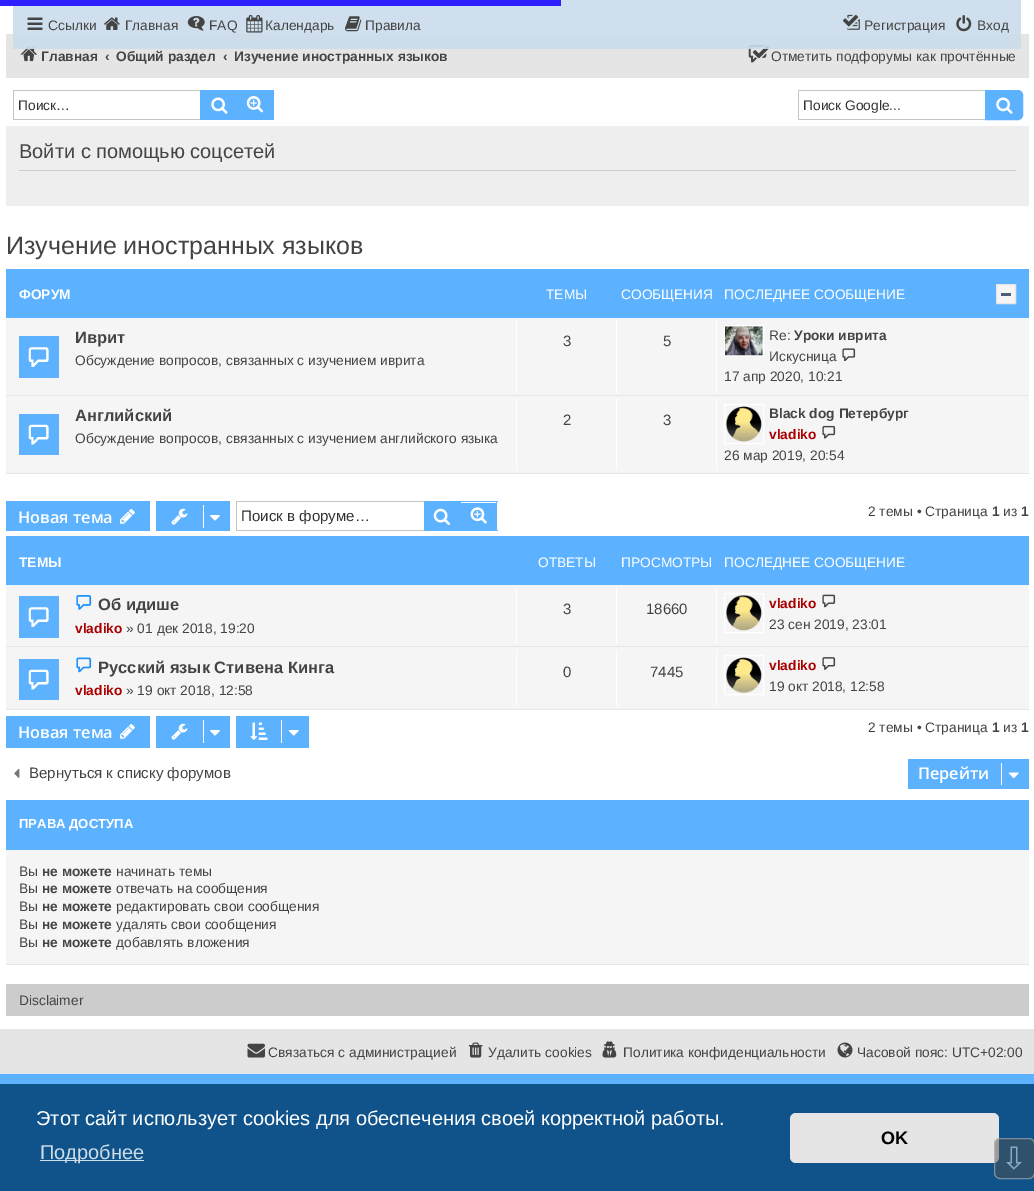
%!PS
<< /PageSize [1034 1191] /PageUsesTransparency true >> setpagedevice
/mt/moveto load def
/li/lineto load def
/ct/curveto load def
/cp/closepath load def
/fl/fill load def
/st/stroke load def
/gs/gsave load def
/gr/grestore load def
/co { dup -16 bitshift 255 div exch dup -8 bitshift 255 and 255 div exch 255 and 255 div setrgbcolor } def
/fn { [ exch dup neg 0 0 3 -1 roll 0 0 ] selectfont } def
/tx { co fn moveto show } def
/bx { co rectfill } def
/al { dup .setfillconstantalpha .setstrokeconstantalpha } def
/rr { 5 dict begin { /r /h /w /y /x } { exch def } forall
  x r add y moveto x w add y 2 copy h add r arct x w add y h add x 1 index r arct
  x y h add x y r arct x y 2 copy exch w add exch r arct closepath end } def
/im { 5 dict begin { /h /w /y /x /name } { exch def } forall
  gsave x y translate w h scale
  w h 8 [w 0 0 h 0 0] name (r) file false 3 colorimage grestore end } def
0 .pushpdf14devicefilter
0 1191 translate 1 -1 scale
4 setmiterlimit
0 0 1034 1191 16#FFFFFF bx
6 34 1023 44 16#E5E5E5 bx
(media/8.raw) 20 46 18 16 im
(media/9.raw) 748 44 22 19 im
0.9 al
13 0 1008 49 16#CADCEB bx
1 al
0 0 561 6 16#2E1FFF bx
(media/1.raw) 27 17 16 13 im
(media/2.raw) 104 17 16 13 im
(media/3.raw) 187 16 18 15 im
(media/4.raw) 246 15 17 18 im
(media/5.raw) 345 16 17 16 im
(media/6.raw) 843 14 17 16 im
(media/7.raw) 956 15 16 17 im
13 90 187 1 16#C7C3BF bx
13 119 187 1 16#C7C3BF bx
13 90 1 30 16#C7C3BF bx
200 90 38 30 16#5DB2FF bx
(media/10.raw) 211 97 17 17 im
238 91 35 28 16#5DB2FF bx
238 90 36 1 16#5DB2FF bx
273 90 1 30 16#5DB2FF bx
238 119 36 1 16#5DB2FF bx
(media/11.raw) 246 96 17 17 im
798 90 187 1 16#C7C3BF bx
798 119 187 1 16#C7C3BF bx
798 90 1 30 16#C7C3BF bx
16#5DB2FF co
985.5 90.5 mt 1018 90.5 li 1020.5 90.5 1022.5 92.5 1022.5 95 ct 1022.5 115 li 1022.5 117.5 1020.5 119.5 1018 119.5 ct 985.5 119.5 li cp gs fl gr
st
(media/10.raw) 996 97 17 17 im
6 126 1023 80 16#EEEEEE bx
19 170 997 1 16#CCCCCC bx
6 269 1023 49 16#5DB2FF bx
16#F5F5F5 co
996.5 284.5 mt 1015.5 284.5 li 1015.5 303.5 li 996.5 303.5 li cp gs fl gr
16#E5E5E5 co
st
1001 293 10 3 16#4C5D77 bx
6 318 1023 155 16#F5F5F5 bx
6 395 1023 1 16#E5E5E5 bx
19 336 40 42 16#5DB2FF bx
(media/12.raw) 28 347 21 20 im
516 320 1 73 16#FFFFFF bx
616 320 1 73 16#FFFFFF bx
716 320 1 73 16#FFFFFF bx
724.5 325.5 39 30 rectstroke
(media/13.raw) 725 326 38 30 im
(media/14.raw) 842 348 14 13 im
6 473 1023 1 16#E5E5E5 bx
19 414 40 41 16#5DB2FF bx
(media/15.raw) 28 424 21 21 im
516 399 1 71 16#FFFFFF bx
616 399 1 71 16#FFFFFF bx
716 399 1 71 16#FFFFFF bx
724.5 404.5 39 39 rectstroke
(media/16.raw) 726 406 36 36 im
(media/17.raw) 822 425 14 14 im
6 501 144 30 16#5DB2FF bx
(media/18.raw) 120 509 15 15 im
156 501 74 30 16#5DB2FF bx
(media/19.raw) 171 508 17 17 im
203 505 1 23 16#FFFFFF bx
(media/20.raw) 210 515 10 6 im
236 501 188 1 16#C7C3BF bx
236 530 188 1 16#C7C3BF bx
236 501 1 30 16#C7C3BF bx
424 501 37 30 16#5DB2FF bx
(media/21.raw) 433 508 17 17 im
461 503 35 27 16#5DB2FF bx
461 501 37 1 16#5DB2FF bx
496 501 1 30 16#5DB2FF bx
461 530 37 1 16#5DB2FF bx
(media/22.raw) 470 507 17 17 im
6 536 1023 49 16#5DB2FF bx
6 585 1023 124 16#F5F5F5 bx
6 646 1023 1 16#E5E5E5 bx
19 596 40 42 16#5DB2FF bx
(media/12.raw) 28 607 21 20 im
(media/23.raw) 76 595 16 15 im
516 588 1 56 16#FFFFFF bx
616 588 1 56 16#FFFFFF bx
716 588 1 56 16#FFFFFF bx
724.5 593.5 39 39 rectstroke
(media/24.raw) 726 595 36 36 im
(media/25.raw) 822 594 14 14 im
6 709 1023 1 16#E5E5E5 bx
19 659 40 41 16#5DB2FF bx
(media/15.raw) 28 669 21 21 im
(media/26.raw) 76 657 16 16 im
516 650 1 56 16#FFFFFF bx
616 650 1 56 16#FFFFFF bx
716 650 1 56 16#FFFFFF bx
724.5 655.5 39 39 rectstroke
(media/27.raw) 726 657 36 37 im
(media/28.raw) 822 657 14 13 im
6 716 144 32 16#5DB2FF bx
(media/18.raw) 120 724 15 15 im
156 716 74 32 16#5DB2FF bx
(media/19.raw) 171 723 17 17 im
203 720 1 23 16#FFFFFF bx
(media/20.raw) 210 730 10 6 im
236 716 73 32 16#5DB2FF bx
(media/29.raw) 250 722 18 18 im
281 720 1 23 16#FFFFFF bx
(media/30.raw) 288 730 11 6 im
(media/31.raw) 14 768 6 10 im
908 759 121 30 16#5DB2FF bx
1001 763 1 22 16#FFFFFF bx
(media/32.raw) 1008 772 11 7 im
6 800 1023 50 16#5DB2FF bx
6 850 1023 114 16#F5F5F5 bx
6 964 1023 1 16#E5E5E5 bx
6 984 1023 32 16#CCCCCC bx
0 1029 1034 45 16#E5E5E5 bx
(media/33.raw) 247 1043 18 15 im
(media/34.raw) 468 1042 15 16 im
(media/35.raw) 602 1041 15 17 im
(media/36.raw) 837 1042 16 16 im
0 1074 1034 10 16#5DB2FF bx
0 1084 1034 107 16#0F538A bx
40 1160 104 1 16#CFDDE8 bx
16#E5E5E5 co
790 1113 209 50 6 rr fl
0.5 al
16#4F4F4F co
994 1138 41 41 6 rr fl
16#CCCCCC co
994.5 1138.5 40 40 5.5 rr st
1 al
(Ссылки) 48 30 /LiberationSans-Regular 13.75 16#444444 tx
(Главная) 125 30 /LiberationSans-Regular 13.75 16#444444 tx
(FAQ) 209 30 /LiberationSans-Regular 13.75 16#444444 tx
(Календарь) 265 30 /LiberationSans-Regular 13.75 16#444444 tx
(Правила) 365 30 /LiberationSans-Regular 13.75 16#444444 tx
(Регистрация) 864 30 /LiberationSans-Regular 13.75 16#444444 tx
(Вход) 977 30 /LiberationSans-Regular 13.75 16#444444 tx
(Главная) 41 61 /LiberationSans-Bold 13.75 16#444444 tx
(‹) 105 61 /LiberationSans-Bold 13.75 16#444444 tx
(Общий раздел) 116 61 /LiberationSans-Bold 13.75 16#444444 tx
(‹) 223 61 /LiberationSans-Bold 13.75 16#444444 tx
(Изучение иностранных языков) 234 61 /LiberationSans-Bold 13.75 16#444444 tx
(Отметить подфорумы как прочтённые) 771 61 /LiberationSans-Regular 13.75 16#444444 tx
(Поиск…) 18 110 /LiberationSans-Regular 13.75 16#333333 tx
(Поиск Google...) 803 110 /LiberationSans-Regular 13.75 16#333333 tx
(Войти с помощью соцсетей) 19 158 /LiberationSans-Regular 20 16#444444 tx
(Изучение иностранных языков) 6 254 /LiberationSans-Regular 25 16#444444 tx
(ФОРУМ) 19 299 /LiberationSans-Bold 13.75 16#FFFFFF tx
(ТЕМЫ) 546 299 /LiberationSans-Regular 13.75 16#FFFFFF tx
(СООБЩЕНИЯ) 621 299 /LiberationSans-Regular 13.75 16#FFFFFF tx
(ПОСЛЕДНЕЕ СООБЩЕНИЕ) 724 299 /LiberationSans-Regular 13.75 16#FFFFFF tx
(Иврит) 75 343 /LiberationSans-Bold 16.5 16#444444 tx
(Обсуждение вопросов, связанных с изучением иврита) 75 365 /LiberationSans-Regular 13.75 16#444444 tx
(3) 563 346 /LiberationSans-Regular 15 16#444444 tx
(5) 663 346 /LiberationSans-Regular 15 16#444444 tx
(Re:) 769 340 /LiberationSans-Regular 13.75 16#444444 tx
(Уроки иврита) 794 340 /LiberationSans-Bold 13.75 16#444444 tx
(Искусница) 769 361 /LiberationSans-Regular 13.75 16#444444 tx
(17 апр 2020, 10:21) 724 381 /LiberationSans-Regular 13.75 16#444444 tx
(Английский) 75 421 /LiberationSans-Bold 16.5 16#444444 tx
(Обсуждение вопросов, связанных с изучением английского языка) 75 443 /LiberationSans-Regular 13.75 16#444444 tx
(2) 563 425 /LiberationSans-Regular 15 16#444444 tx
(3) 663 425 /LiberationSans-Regular 15 16#444444 tx
(Black dog Петербург) 769 418 /LiberationSans-Bold 13.75 16#444444 tx
(vladiko) 769 439 /LiberationSans-Bold 13.75 16#AA0000 tx
(26 мар 2019, 20:54) 724 460 /LiberationSans-Regular 13.75 16#444444 tx
(Новая тема) 18 523 /OpenSans-SemiBold 16.25 16#FFFFFF tx
(Поиск в форуме…) 241 521 /LiberationSans-Regular 15.1 16#333333 tx
(2 темы • Страница) 868 516 /LiberationSans-Regular 13.75 16#444444 tx
(1) 992 516 /LiberationSans-Bold 13.75 16#444444 tx
(из) 1003 516 /LiberationSans-Regular 13.75 16#444444 tx
(1) 1021 516 /LiberationSans-Bold 13.75 16#444444 tx
(ТЕМЫ) 19 567 /LiberationSans-Bold 13.75 16#FFFFFF tx
(ОТВЕТЫ) 538 567 /LiberationSans-Regular 13.75 16#FFFFFF tx
(ПРОСМОТРЫ) 621 567 /LiberationSans-Regular 13.75 16#FFFFFF tx
(ПОСЛЕДНЕЕ СООБЩЕНИЕ) 724 567 /LiberationSans-Regular 13.75 16#FFFFFF tx
(Об идише) 98 610 /LiberationSans-Bold 16.5 16#444444 tx
(vladiko) 75 633 /LiberationSans-Bold 13.75 16#AA0000 tx
(» 01 дек 2018, 19:20) 126 633 /LiberationSans-Regular 13.75 16#444444 tx
(3) 563 614 /LiberationSans-Regular 15 16#444444 tx
(18660) 646 614 /LiberationSans-Regular 15 16#444444 tx
(vladiko) 769 608 /LiberationSans-Bold 13.75 16#AA0000 tx
(23 сен 2019, 23:01) 769 629 /LiberationSans-Regular 13.75 16#444444 tx
(Русский язык Стивена Кинга) 98 673 /LiberationSans-Bold 16.5 16#444444 tx
(vladiko) 75 695 /LiberationSans-Bold 13.75 16#AA0000 tx
(» 19 окт 2018, 12:58) 126 695 /LiberationSans-Regular 13.75 16#444444 tx
(0) 563 677 /LiberationSans-Regular 15 16#444444 tx
(7445) 650 677 /LiberationSans-Regular 15 16#444444 tx
(vladiko) 769 670 /LiberationSans-Bold 13.75 16#AA0000 tx
(19 окт 2018, 12:58) 769 691 /LiberationSans-Regular 13.75 16#444444 tx
(Новая тема) 18 738 /OpenSans-SemiBold 16.25 16#FFFFFF tx
(2 темы • Страница) 868 732 /LiberationSans-Regular 13.75 16#444444 tx
(1) 992 732 /LiberationSans-Bold 13.75 16#444444 tx
(из) 1003 732 /LiberationSans-Regular 13.75 16#444444 tx
(1) 1021 732 /LiberationSans-Bold 13.75 16#444444 tx
(Вернуться к списку форумов) 29 778 /LiberationSans-Regular 15.1 16#444444 tx
(Перейти) 918 779 /OpenSans-SemiBold 16.25 16#FFFFFF tx
(ПРАВА ДОСТУПА) 19 828 /LiberationSans-Bold 13.1 16#FFFFFF tx
(Вы) 19 876 /LiberationSans-Regular 13.75 16#444444 tx
(не можете) 42 876 /LiberationSans-Bold 13.75 16#444444 tx
(начинать темы) 116 876 /LiberationSans-Regular 13.75 16#444444 tx
(Вы) 19 893 /LiberationSans-Regular 13.75 16#444444 tx
(не можете) 42 893 /LiberationSans-Bold 13.75 16#444444 tx
(отвечать на сообщения) 116 893 /LiberationSans-Regular 13.75 16#444444 tx
(Вы) 19 911 /LiberationSans-Regular 13.75 16#444444 tx
(не можете) 42 911 /LiberationSans-Bold 13.75 16#444444 tx
(редактировать свои сообщения) 116 911 /LiberationSans-Regular 13.75 16#444444 tx
(Вы) 19 929 /LiberationSans-Regular 13.75 16#444444 tx
(не можете) 42 929 /LiberationSans-Bold 13.75 16#444444 tx
(удалять свои сообщения) 116 929 /LiberationSans-Regular 13.75 16#444444 tx
(Вы) 19 947 /LiberationSans-Regular 13.75 16#444444 tx
(не можете) 42 947 /LiberationSans-Bold 13.75 16#444444 tx
(добавлять вложения) 116 947 /LiberationSans-Regular 13.75 16#444444 tx
(Disclaimer) 19 1005 /LiberationSans-Regular 13.75 16#444444 tx
(Связаться с администрацией) 268 1057 /LiberationSans-Regular 13.75 16#444444 tx
(Удалить cookies) 488 1057 /LiberationSans-Regular 13.75 16#444444 tx
(Политика конфиденциальности) 623 1057 /LiberationSans-Regular 13.75 16#444444 tx
(Часовой пояс: UTC+02:00) 857 1057 /LiberationSans-Regular 13.75 16#444444 tx
(Этот сайт использует cookies для обеспечения своей корректной работы.) 36 1125 /LiberationSans-Regular 20 16#FFFFFF tx
(Подробнее) 40 1159 /LiberationSans-Regular 20 16#CFDDE8 tx
(OK) 881 1144 /LiberationSans-Bold 18 16#000000 tx
(⇩) 1001 1169 /DejaVuSans-Regular 31 16#87A9C5 tx
.poppdf14devicefilter showpage
